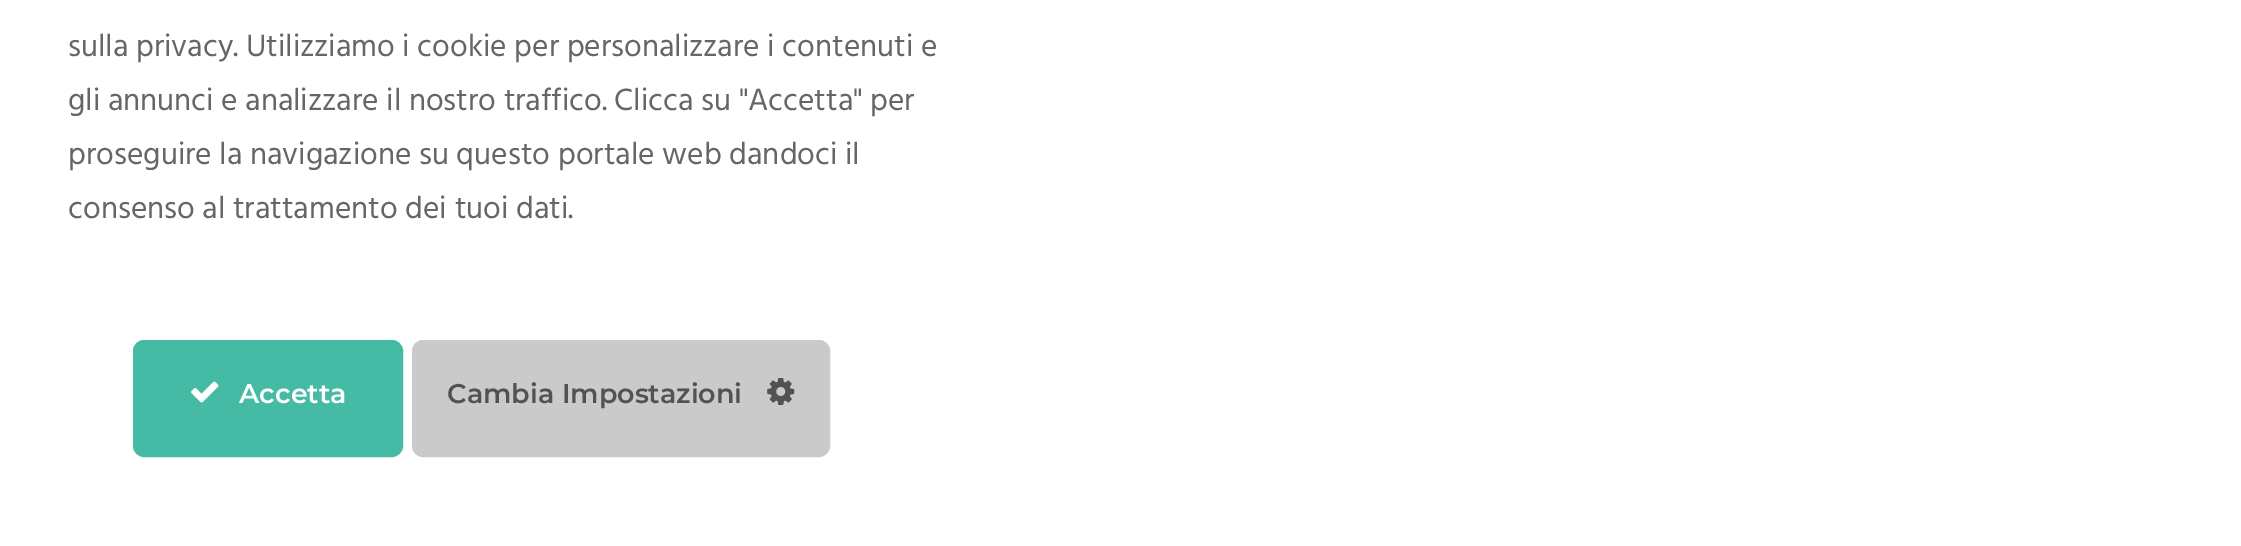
%!PS
<< /PageSize [2241 546] >> setpagedevice
/fl/fill load def
/st/stroke load def
/gs/gsave load def
/gr/grestore load def
/lw/setlinewidth load def
/co { dup -16 bitshift 255 div exch dup -8 bitshift 255 and 255 div exch 255 and 255 div setrgbcolor } def
/fn { [ exch dup neg 0 0 3 -1 roll 0 0 ] selectfont } def
/tx { co fn moveto show } def
/bx { co rectfill } def
/rr { 5 dict begin { /r /h /w /y /x } { exch def } forall
  x r add y moveto x w add y 2 copy h add r arct x w add y h add x 1 index r arct
  x y h add x y r arct x y 2 copy exch w add exch r arct closepath end } def
/im { 5 dict begin { /h /w /y /x /name } { exch def } forall
  gsave x y translate w h scale
  w h 8 [w 0 0 h 0 0] name (r) file false 3 colorimage grestore end } def
0 546 translate 1 -1 scale
4 setmiterlimit
0 0 2241 546 16#FFFFFF bx
16#45BBA5 co
134 341 268 115 10 rr gs fl gr
2 lw
st
(media/1.raw) 191 381 28 22 im
16#CACACA co
413 341 416 115 10 rr gs fl gr
st
(media/2.raw) 767 378 28 27 im
(sulla privacy. Utilizziamo i cookie per personalizzare i contenuti e) 68 56 /Hind-Regular 31.5 16#666666 tx
(gli annunci e analizzare il nostro traffico. Clicca su "Accetta" per) 68 110 /Hind-Regular 31.5 16#666666 tx
(proseguire la navigazione su questo portale web dandoci il) 68 164 /Hind-Regular 31.5 16#666666 tx
(consenso al trattamento dei tuoi dati.) 68 218 /Hind-Regular 31.5 16#666666 tx
(Accetta) 239 403 /Montserrat-SemiBold 27 16#FFFFFF tx
(Cambia Impostazioni) 447 403 /Montserrat-SemiBold 27 16#525253 tx
showpage
